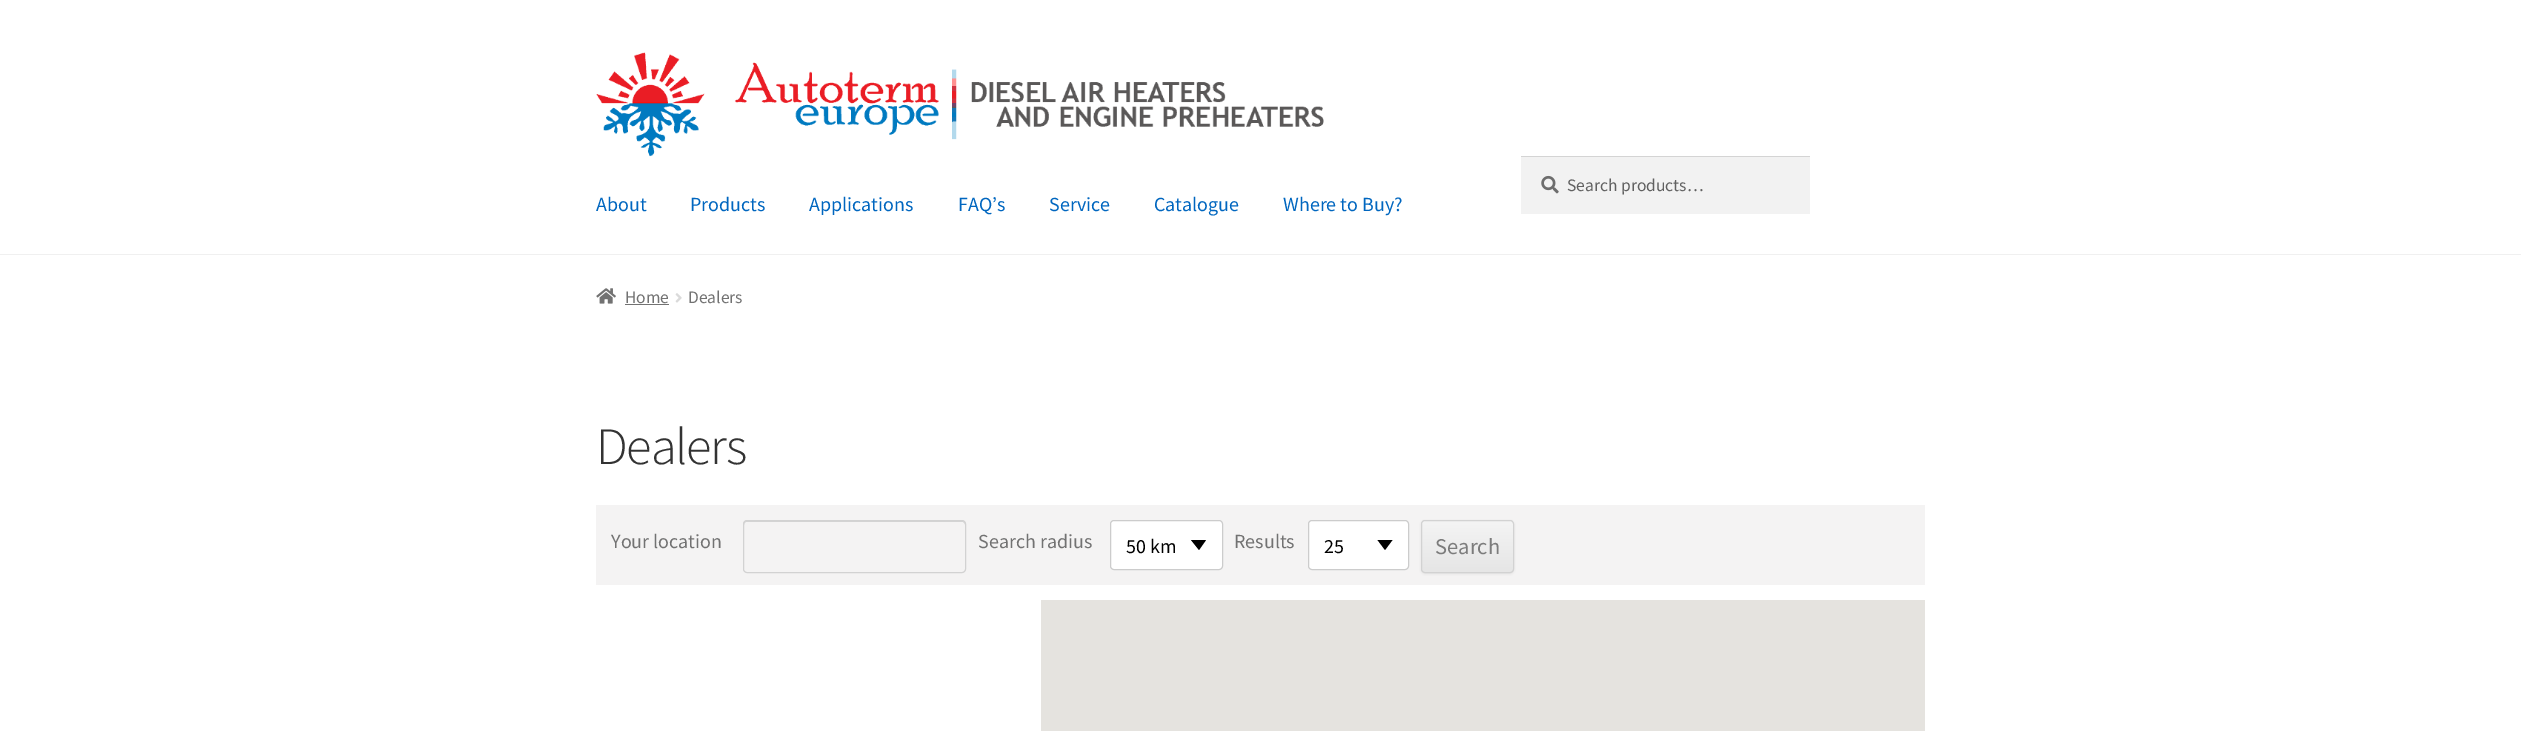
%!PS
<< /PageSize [2521 731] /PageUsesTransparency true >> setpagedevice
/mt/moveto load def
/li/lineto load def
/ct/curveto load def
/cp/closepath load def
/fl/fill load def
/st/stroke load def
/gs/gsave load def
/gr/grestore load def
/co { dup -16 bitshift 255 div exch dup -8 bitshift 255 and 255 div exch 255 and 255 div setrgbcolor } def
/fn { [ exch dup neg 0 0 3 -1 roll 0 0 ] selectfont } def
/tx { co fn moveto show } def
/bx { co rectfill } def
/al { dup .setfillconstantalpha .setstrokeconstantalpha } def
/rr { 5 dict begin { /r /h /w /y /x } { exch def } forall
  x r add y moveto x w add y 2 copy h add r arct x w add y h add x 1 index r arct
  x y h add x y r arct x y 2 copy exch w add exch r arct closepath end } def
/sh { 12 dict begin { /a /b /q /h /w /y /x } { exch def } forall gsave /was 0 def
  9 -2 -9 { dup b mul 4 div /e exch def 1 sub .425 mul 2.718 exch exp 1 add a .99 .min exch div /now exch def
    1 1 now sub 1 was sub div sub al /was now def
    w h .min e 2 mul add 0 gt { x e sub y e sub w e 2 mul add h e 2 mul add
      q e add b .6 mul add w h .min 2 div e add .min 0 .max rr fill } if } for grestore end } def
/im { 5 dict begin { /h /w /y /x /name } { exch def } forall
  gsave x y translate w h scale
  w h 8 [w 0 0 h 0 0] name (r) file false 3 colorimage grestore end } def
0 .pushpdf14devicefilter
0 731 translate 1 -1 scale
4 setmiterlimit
0 0 2521 731 16#FFFFFF bx
0 254 2521 1 16#F0F0F0 bx
(media/1.raw) 596 52 728 105 im
1521 157 289 57 16#F2F2F2 bx
(media/2.raw) 1541 175 18 19 im
1521 156 289 1 16#D4D4D4 bx
(media/3.raw) 596 288 20 16 im
625 304 44 1 16#727272 bx
(media/4.raw) 675 293 7 10 im
596 505 1329 80 16#F4F3F3 bx
16#D4D4D4 co
746 522 mt 963 522 li 965 524 li 965 525 li 965 523 965 521 962 521 ct 746 521 li 744 521 744 523 744 525 ct 744 524 745 522 746 522 ct cp fl
16#D2D2D2 co
743.5 520.5 222 52 3.5 rr st
16#FFFFFF co
1110.5 520.5 112 49 3.5 rr gs fl gr
16#CCCCCC co
st
16#000000 co
1191 540 mt 1206 540 li 1199 550 li cp fl
16#FFFFFF co
1308.5 520.5 100 49 3.5 rr gs fl gr
16#CCCCCC co
st
16#000000 co
1377.5 540 mt 1392.5 540 li 1385 550 li cp fl
16#404040 co
1421 521 93 53 4 1 .1 sh
16#E6E6E6 co
1421 520 93 53 4 rr fl
gs
1421 520 93 53 4 rr clip newpath
gs 1421 521 mt 1514 521 li 1514 571 li 1421 571 li cp clip newpath
<< /ShadingType 2 /ColorSpace /DeviceRGB /Coords [1468 521 1468 571] /Extend [true true] /Function << /FunctionType 2 /Domain [0 1] /C0 [.957 .957 .957] /C1 [.902 .902 .902] /N 1 >> >> shfill gr
gr
16#D2D2D2 co
1421.5 520.5 92 52 3.5 rr st
1041 600 884 131 16#E5E3DF bx
(Search products…) 1567 191 /SourceSansPro-Regular 17.5 16#616161 tx
(About) 596 211 /SourceSansPro-Regular 20 16#0066BF tx
(Products) 690 211 /SourceSansPro-Regular 20 16#0066BF tx
(Applications) 809 211 /SourceSansPro-Regular 20 16#0066BF tx
(FAQ’s) 958 211 /SourceSansPro-Regular 20 16#0066BF tx
(Service) 1049 211 /SourceSansPro-Regular 20 16#0066BF tx
(Catalogue) 1154 211 /SourceSansPro-Regular 20 16#0066BF tx
(Where to Buy?) 1283 211 /SourceSansPro-Regular 20 16#0066BF tx
(Home) 625 303 /SourceSansPro-Regular 17.5 16#727272 tx
(Dealers) 688 303 /SourceSansPro-Regular 17.5 16#727272 tx
/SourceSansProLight-Light 52.5 fn
16#333333 co
596 464 mt -1.25 0 (Dealers) ashow
(Your location) 611 548 /SourceSansPro-Regular 20 16#727272 tx
(Search radius) 978 548 /SourceSansPro-Regular 20 16#727272 tx
(50 km) 1126 553 /SourceSansPro-Regular 20 16#000000 tx
(Results) 1234 548 /SourceSansPro-Regular 20 16#727272 tx
(25) 1324 553 /SourceSansPro-Regular 20 16#000000 tx
(Search) 1435 554 /SourceSansPro-Regular 22.5 16#7C7C7C tx
.poppdf14devicefilter showpage
